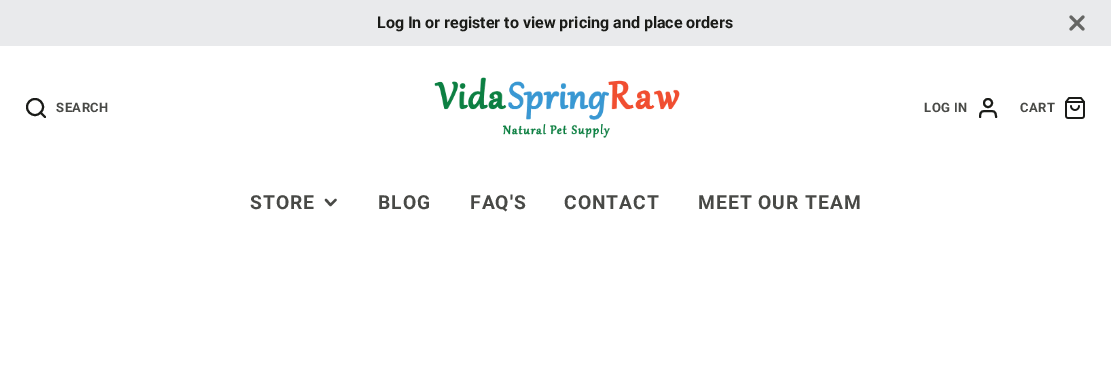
%!PS
<< /PageSize [1111 375] >> setpagedevice
/mt/moveto load def
/li/lineto load def
/ct/curveto load def
/st/stroke load def
/lw/setlinewidth load def
/co { dup -16 bitshift 255 div exch dup -8 bitshift 255 and 255 div exch 255 and 255 div setrgbcolor } def
/fn { [ exch dup neg 0 0 3 -1 roll 0 0 ] selectfont } def
/tx { co fn moveto show } def
/bx { co rectfill } def
/ci { newpath 0 360 arc closepath } def
/im { 5 dict begin { /h /w /y /x /name } { exch def } forall
  gsave x y translate w h scale
  w h 8 [w 0 0 h 0 0] name (r) file false 3 colorimage grestore end } def
0 375 translate 1 -1 scale
4 setmiterlimit
0 0 1111 375 16#FFFFFF bx
0 0 1111 46 16#E9EAEC bx
16#656664 co
3 lw
1 setlinecap
1 setlinejoin
1083 17 mt 1071 29 li 1071 17 mt 1083 29 li st
16#1A1B18 co
2 lw
0 setlinecap
0 setlinejoin
35 107 8 ci st
1 setlinecap
1 setlinejoin
45 117 mt 40.5 112.5 li st
(media/1.raw) 434 77 246 61 im
0 setlinecap
0 setlinejoin
988 103 4 ci st
1 setlinecap
1 setlinejoin
996 117 mt 996 110.5 993.5 111 988 111 ct 982.5 111 980 110.5 980 117 ct st
(media/2.raw) 1065 97 20 22 im
16#484946 co
2.4 lw
326 200 mt 330.5 205 li 335.5 200 li st
(Log In or register to view pricing and place orders) 377 28 /Roboto-Bold 16 16#1A1B18 tx
/Roboto-Bold 13 fn
16#484946 co
56 112 mt .5 0 (SEARCH) ashow
924 112 mt .5 0 (LOG IN) ashow
1020 112 mt .5 0 (CART) ashow
/Roboto-Bold 19.25 fn
250 209 mt 1 0 (STORE) ashow
378 209 mt 1 0 (BLOG) ashow
470 209 mt 1 0 (FAQ'S) ashow
564 209 mt 1 0 (CONTACT) ashow
698 209 mt 1 0 (MEET OUR TEAM) ashow
showpage
